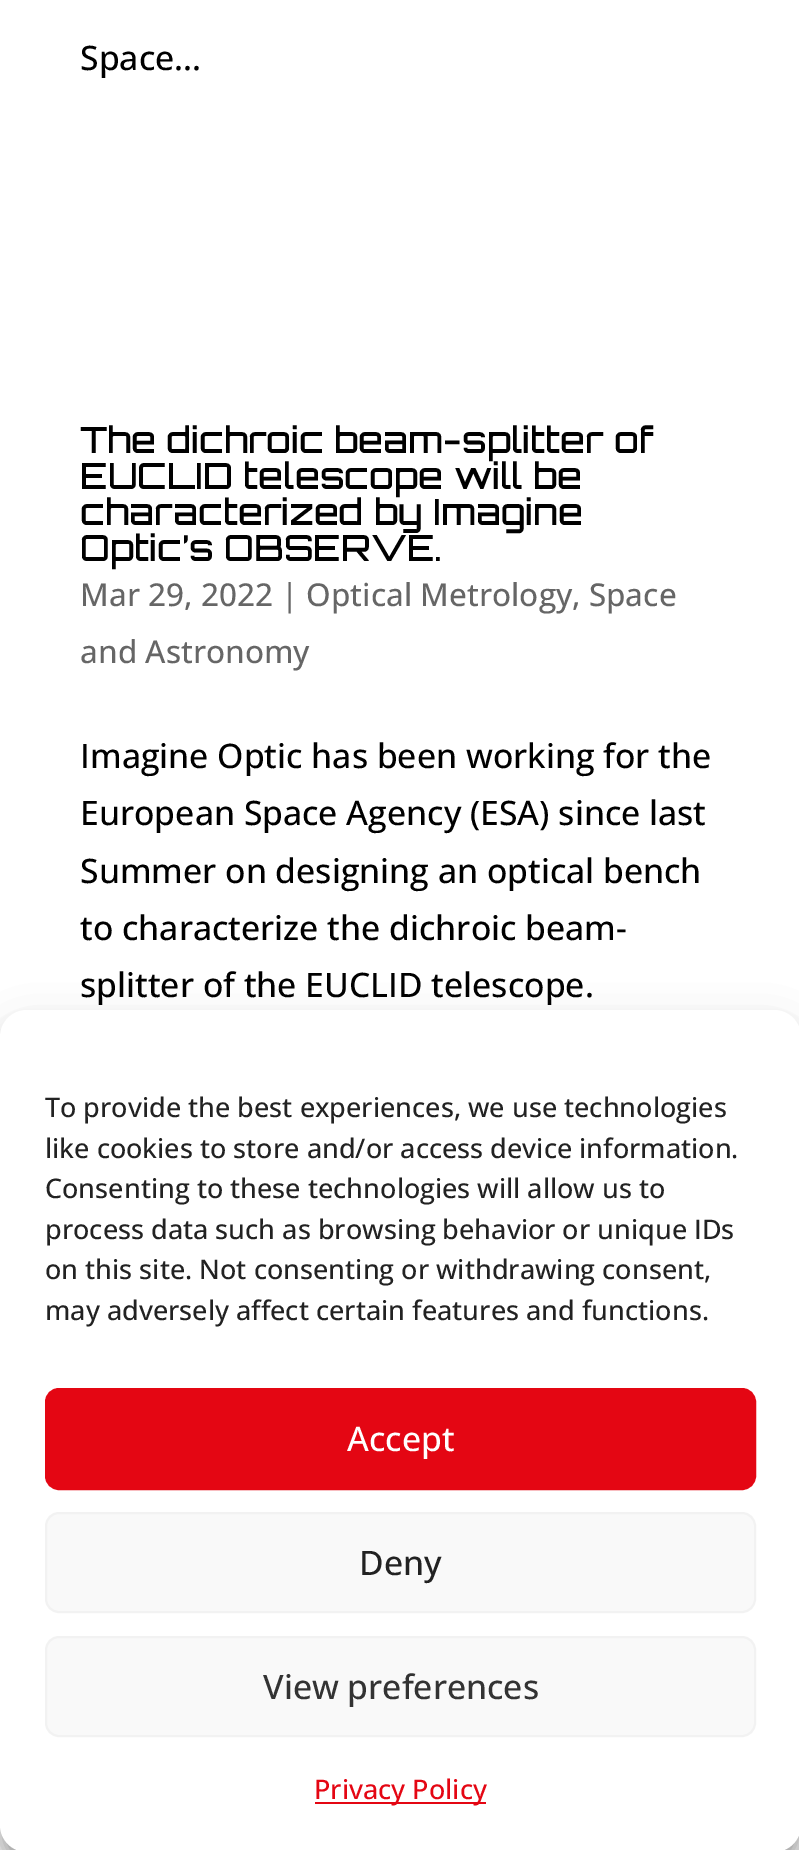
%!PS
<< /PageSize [799 1850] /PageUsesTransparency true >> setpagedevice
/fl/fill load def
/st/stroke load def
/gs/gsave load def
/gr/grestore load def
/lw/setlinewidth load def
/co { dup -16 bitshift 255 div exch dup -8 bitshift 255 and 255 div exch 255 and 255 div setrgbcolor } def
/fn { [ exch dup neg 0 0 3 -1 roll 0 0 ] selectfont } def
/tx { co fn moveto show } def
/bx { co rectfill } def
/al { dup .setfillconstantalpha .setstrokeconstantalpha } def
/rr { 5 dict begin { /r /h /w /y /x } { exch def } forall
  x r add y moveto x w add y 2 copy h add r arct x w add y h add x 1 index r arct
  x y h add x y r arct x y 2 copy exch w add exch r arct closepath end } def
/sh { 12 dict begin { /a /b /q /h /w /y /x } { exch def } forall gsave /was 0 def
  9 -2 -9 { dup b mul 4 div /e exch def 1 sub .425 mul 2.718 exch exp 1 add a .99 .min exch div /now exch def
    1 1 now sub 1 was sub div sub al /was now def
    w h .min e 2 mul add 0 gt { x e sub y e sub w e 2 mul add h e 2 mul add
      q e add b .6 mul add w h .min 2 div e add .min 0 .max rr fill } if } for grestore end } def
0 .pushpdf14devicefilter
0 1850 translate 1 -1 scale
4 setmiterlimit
0 0 799 1850 16#FFFFFF bx
16#000000 co
0 1024 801 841 27 7 .23 sh
0 1033 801 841 27 22.5 .19 sh
16#FFFFFF co
0 1010 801 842 27 rr fl
16#E40613 co
46 1389 709 100 13 rr gs fl gr
2 lw
st
16#F9F9F9 co
46 1513 709 99 13 rr gs fl gr
16#F2F2F2 co
st
16#F9F9F9 co
46 1637 709 99 13 rr gs fl gr
16#F2F2F2 co
st
315 1802 171 2 16#E40613 bx
(Space...) 80 70 /OpenSans-Medium 33.75 16#000000 tx
(The dichroic beam-splitter of) 80 453 /Orbitron-Medium 36 16#000000 tx
(EUCLID telescope will be) 80 489 /Orbitron-Medium 36 16#000000 tx
(characterized by Imagine) 80 525 /Orbitron-Medium 36 16#000000 tx
(Optic’s OBSERVE.) 80 561 /Orbitron-Medium 36 16#000000 tx
(Mar 29, 2022 | Optical Metrology, Space) 80 606 /OpenSans-Medium 31.5 16#666666 tx
(and Astronomy) 80 663 /OpenSans-Medium 31.5 16#666666 tx
(Imagine Optic has been working for the) 80 768 /OpenSans-Medium 33.75 16#000000 tx
(European Space Agency \(ESA\) since last) 80 825 /OpenSans-Medium 33.75 16#000000 tx
(Summer on designing an optical bench) 80 883 /OpenSans-Medium 33.75 16#000000 tx
(to characterize the dichroic beam-) 80 940 /OpenSans-Medium 33.75 16#000000 tx
(splitter of the EUCLID telescope.) 80 997 /OpenSans-Medium 33.75 16#000000 tx
(To provide the best experiences, we use technologies) 45 1117 /OpenSans-Medium 27 16#222222 tx
(like cookies to store and/or access device information.) 45 1158 /OpenSans-Medium 27 16#222222 tx
(Consenting to these technologies will allow us to) 45 1198 /OpenSans-Medium 27 16#222222 tx
(process data such as browsing behavior or unique IDs) 45 1239 /OpenSans-Medium 27 16#222222 tx
(on this site. Not consenting or withdrawing consent,) 45 1279 /OpenSans-Medium 27 16#222222 tx
(may adversely affect certain features and functions.) 45 1320 /OpenSans-Medium 27 16#222222 tx
(Accept) 347 1451 /OpenSans-Medium 33.75 16#FFFFFF tx
(Deny) 359 1575 /OpenSans-Medium 33.75 16#222222 tx
(View preferences) 263 1699 /OpenSans-Medium 33.75 16#333333 tx
(Privacy Policy) 314 1799 /OpenSans-Medium 27 16#E40613 tx
.poppdf14devicefilter showpage
